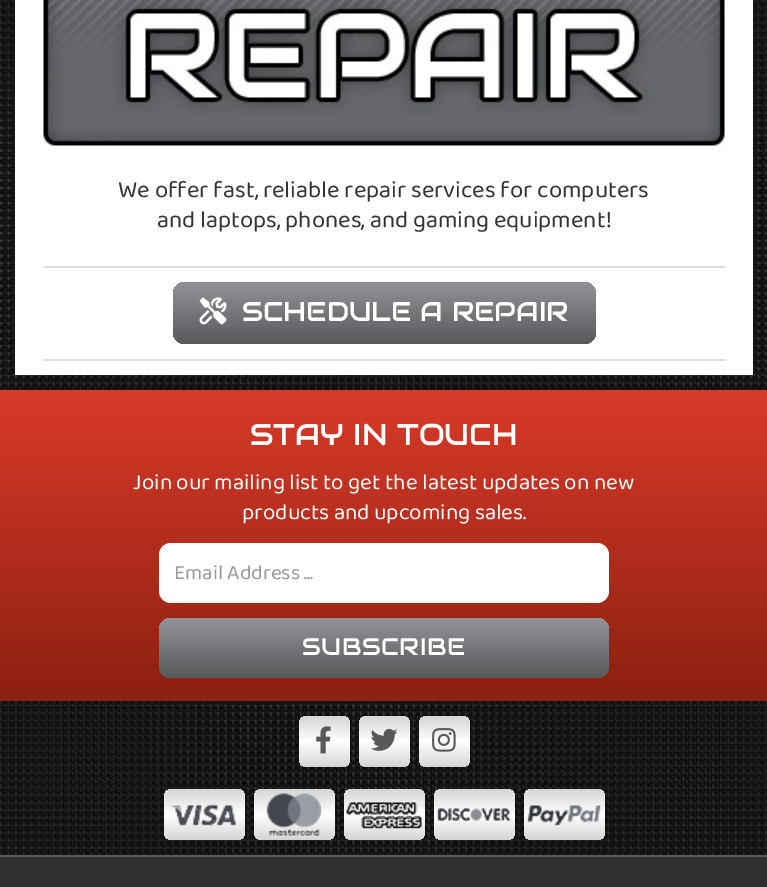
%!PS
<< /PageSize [767 887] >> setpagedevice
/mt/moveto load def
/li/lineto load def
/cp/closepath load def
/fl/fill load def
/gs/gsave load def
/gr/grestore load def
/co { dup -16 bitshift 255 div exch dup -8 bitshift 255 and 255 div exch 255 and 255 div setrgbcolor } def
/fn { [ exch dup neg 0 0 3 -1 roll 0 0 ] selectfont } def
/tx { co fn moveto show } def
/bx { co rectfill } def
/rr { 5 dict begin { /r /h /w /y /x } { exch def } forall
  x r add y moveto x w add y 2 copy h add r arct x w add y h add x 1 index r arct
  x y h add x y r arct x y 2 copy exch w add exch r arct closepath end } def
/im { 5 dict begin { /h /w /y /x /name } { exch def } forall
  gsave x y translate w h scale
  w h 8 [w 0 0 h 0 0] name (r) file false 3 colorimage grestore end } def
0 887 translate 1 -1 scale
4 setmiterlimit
0 0 767 887 16#FFFFFF bx
(media/1.raw) 0 0 767 855 im
15 0 738 375 16#FFFFFF bx
(media/2.raw) 43 0 682 146 im
44 266 681 2 16#DDDDDD bx
44 359 681 2 16#DDDDDD bx
gs 173 282 423 62 12 rr clip newpath
<< /ShadingType 2 /ColorSpace /DeviceRGB /Coords [384 282 384 344] /Extend [true true] /Function << /FunctionType 2 /Domain [0 1] /C0 [.569 .576 .596] /C1 [.345 .349 .357] /N 1 >> >> shfill gr
(media/3.raw) 199 297 28 28 im
gs 0 390 mt 767 390 li 767 701 li 0 701 li cp clip newpath
<< /ShadingType 2 /ColorSpace /DeviceRGB /Coords [384 390 384 701] /Extend [true true] /Function << /FunctionType 2 /Domain [0 1] /C0 [.851 .227 .161] /C1 [.549 .125 .067] /N 1 >> >> shfill gr
16#FFFFFF co
159 543 450 60 12 rr fl
gs 159 618 450 60 12 rr clip newpath
<< /ShadingType 2 /ColorSpace /DeviceRGB /Coords [384 618 384 678] /Extend [true true] /Function << /FunctionType 2 /Domain [0 1] /C0 [.569 .576 .596] /C1 [.345 .349 .357] /N 1 >> >> shfill gr
gs 299 716 51 51 8 rr clip newpath
<< /ShadingType 2 /ColorSpace /DeviceRGB /Coords [324 716 324 767] /Extend [true true] /Function << /FunctionType 3 /Domain [0 1] /Functions [<< /FunctionType 2 /Domain [0 1] /C0 [.835 .835 .835] /C1 [1 1 1] /N 1 >> << /FunctionType 2 /Domain [0 1] /C0 [1 1 1] /C1 [.835 .835 .835] /N 1 >>] /Bounds [.5] /Encode [0 1 0 1] >> >> shfill gr
(media/4.raw) 316 726 15 28 im
gs 359 716 51 51 8 rr clip newpath
<< /ShadingType 2 /ColorSpace /DeviceRGB /Coords [384 716 384 767] /Extend [true true] /Function << /FunctionType 3 /Domain [0 1] /Functions [<< /FunctionType 2 /Domain [0 1] /C0 [.835 .835 .835] /C1 [1 1 1] /N 1 >> << /FunctionType 2 /Domain [0 1] /C0 [1 1 1] /C1 [.835 .835 .835] /N 1 >>] /Bounds [.5] /Encode [0 1 0 1] >> >> shfill gr
(media/5.raw) 370 728 28 23 im
gs 419 716 51 51 8 rr clip newpath
<< /ShadingType 2 /ColorSpace /DeviceRGB /Coords [444 716 444 767] /Extend [true true] /Function << /FunctionType 3 /Domain [0 1] /Functions [<< /FunctionType 2 /Domain [0 1] /C0 [.835 .835 .835] /C1 [1 1 1] /N 1 >> << /FunctionType 2 /Domain [0 1] /C0 [1 1 1] /C1 [.835 .835 .835] /N 1 >>] /Bounds [.5] /Encode [0 1 0 1] >> >> shfill gr
(media/6.raw) 432 728 24 24 im
gs 164 789 81 51 8 rr clip newpath
<< /ShadingType 2 /ColorSpace /DeviceRGB /Coords [204 789 204 840] /Extend [true true] /Function << /FunctionType 3 /Domain [0 1] /Functions [<< /FunctionType 2 /Domain [0 1] /C0 [.835 .835 .835] /C1 [1 1 1] /N 1 >> << /FunctionType 2 /Domain [0 1] /C0 [1 1 1] /C1 [.835 .835 .835] /N 1 >>] /Bounds [.5] /Encode [0 1 0 1] >> >> shfill gr
(media/7.raw) 170 803 66 23 im
gs 254 789 81 51 8 rr clip newpath
<< /ShadingType 2 /ColorSpace /DeviceRGB /Coords [294 789 294 840] /Extend [true true] /Function << /FunctionType 3 /Domain [0 1] /Functions [<< /FunctionType 2 /Domain [0 1] /C0 [.835 .835 .835] /C1 [1 1 1] /N 1 >> << /FunctionType 2 /Domain [0 1] /C0 [1 1 1] /C1 [.835 .835 .835] /N 1 >>] /Bounds [.5] /Encode [0 1 0 1] >> >> shfill gr
(media/8.raw) 266 793 56 43 im
gs 344 789 81 51 8 rr clip newpath
<< /ShadingType 2 /ColorSpace /DeviceRGB /Coords [384 789 384 840] /Extend [true true] /Function << /FunctionType 3 /Domain [0 1] /Functions [<< /FunctionType 2 /Domain [0 1] /C0 [.835 .835 .835] /C1 [1 1 1] /N 1 >> << /FunctionType 2 /Domain [0 1] /C0 [1 1 1] /C1 [.835 .835 .835] /N 1 >>] /Bounds [.5] /Encode [0 1 0 1] >> >> shfill gr
(media/9.raw) 346 802 76 27 im
gs 434 789 81 51 8 rr clip newpath
<< /ShadingType 2 /ColorSpace /DeviceRGB /Coords [474 789 474 840] /Extend [true true] /Function << /FunctionType 3 /Domain [0 1] /Functions [<< /FunctionType 2 /Domain [0 1] /C0 [.835 .835 .835] /C1 [1 1 1] /N 1 >> << /FunctionType 2 /Domain [0 1] /C0 [1 1 1] /C1 [.835 .835 .835] /N 1 >>] /Bounds [.5] /Encode [0 1 0 1] >> >> shfill gr
(media/10.raw) 437 808 74 13 im
gs 524 789 81 51 8 rr clip newpath
<< /ShadingType 2 /ColorSpace /DeviceRGB /Coords [564 789 564 840] /Extend [true true] /Function << /FunctionType 3 /Domain [0 1] /Functions [<< /FunctionType 2 /Domain [0 1] /C0 [.835 .835 .835] /C1 [1 1 1] /N 1 >> << /FunctionType 2 /Domain [0 1] /C0 [1 1 1] /C1 [.835 .835 .835] /N 1 >>] /Bounds [.5] /Encode [0 1 0 1] >> >> shfill gr
(media/11.raw) 527 805 74 21 im
gs 0 857 mt 767 857 li 767 887 li 0 887 li cp clip newpath
<< /ShadingType 2 /ColorSpace /DeviceRGB /Coords [384 857 384 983] /Extend [true true] /Function << /FunctionType 2 /Domain [0 1] /C0 [.2 .2 .2] /C1 [.122 .122 .122] /N 1 >> >> shfill gr
0 855 767 2 16#58595B bx
(We offer fast, reliable repair services for computers) 118 197 /Baloo2-Regular 24 16#333333 tx
(and laptops, phones, and gaming equipment!) 157 227 /Baloo2-Regular 24 16#333333 tx
(SCHEDULE A REPAIR) 242 321 /Audiowide-Regular 27 16#FFFFFF tx
(STAY IN TOUCH) 250 445 /Audiowide-Regular 30 16#FFFFFF tx
(Join our mailing list to get the latest updates on new) 133 489 /Baloo2-Regular 22.5 16#FFFFFF tx
(products and upcoming sales.) 242 519 /Baloo2-Regular 22.5 16#FFFFFF tx
(Email Address ...) 174 579 /Baloo2-Regular 21 16#999999 tx
/Audiowide-Regular 24 fn
16#FFFFFF co
302 655 mt .5 0 (SUBSCRIBE) ashow
showpage
